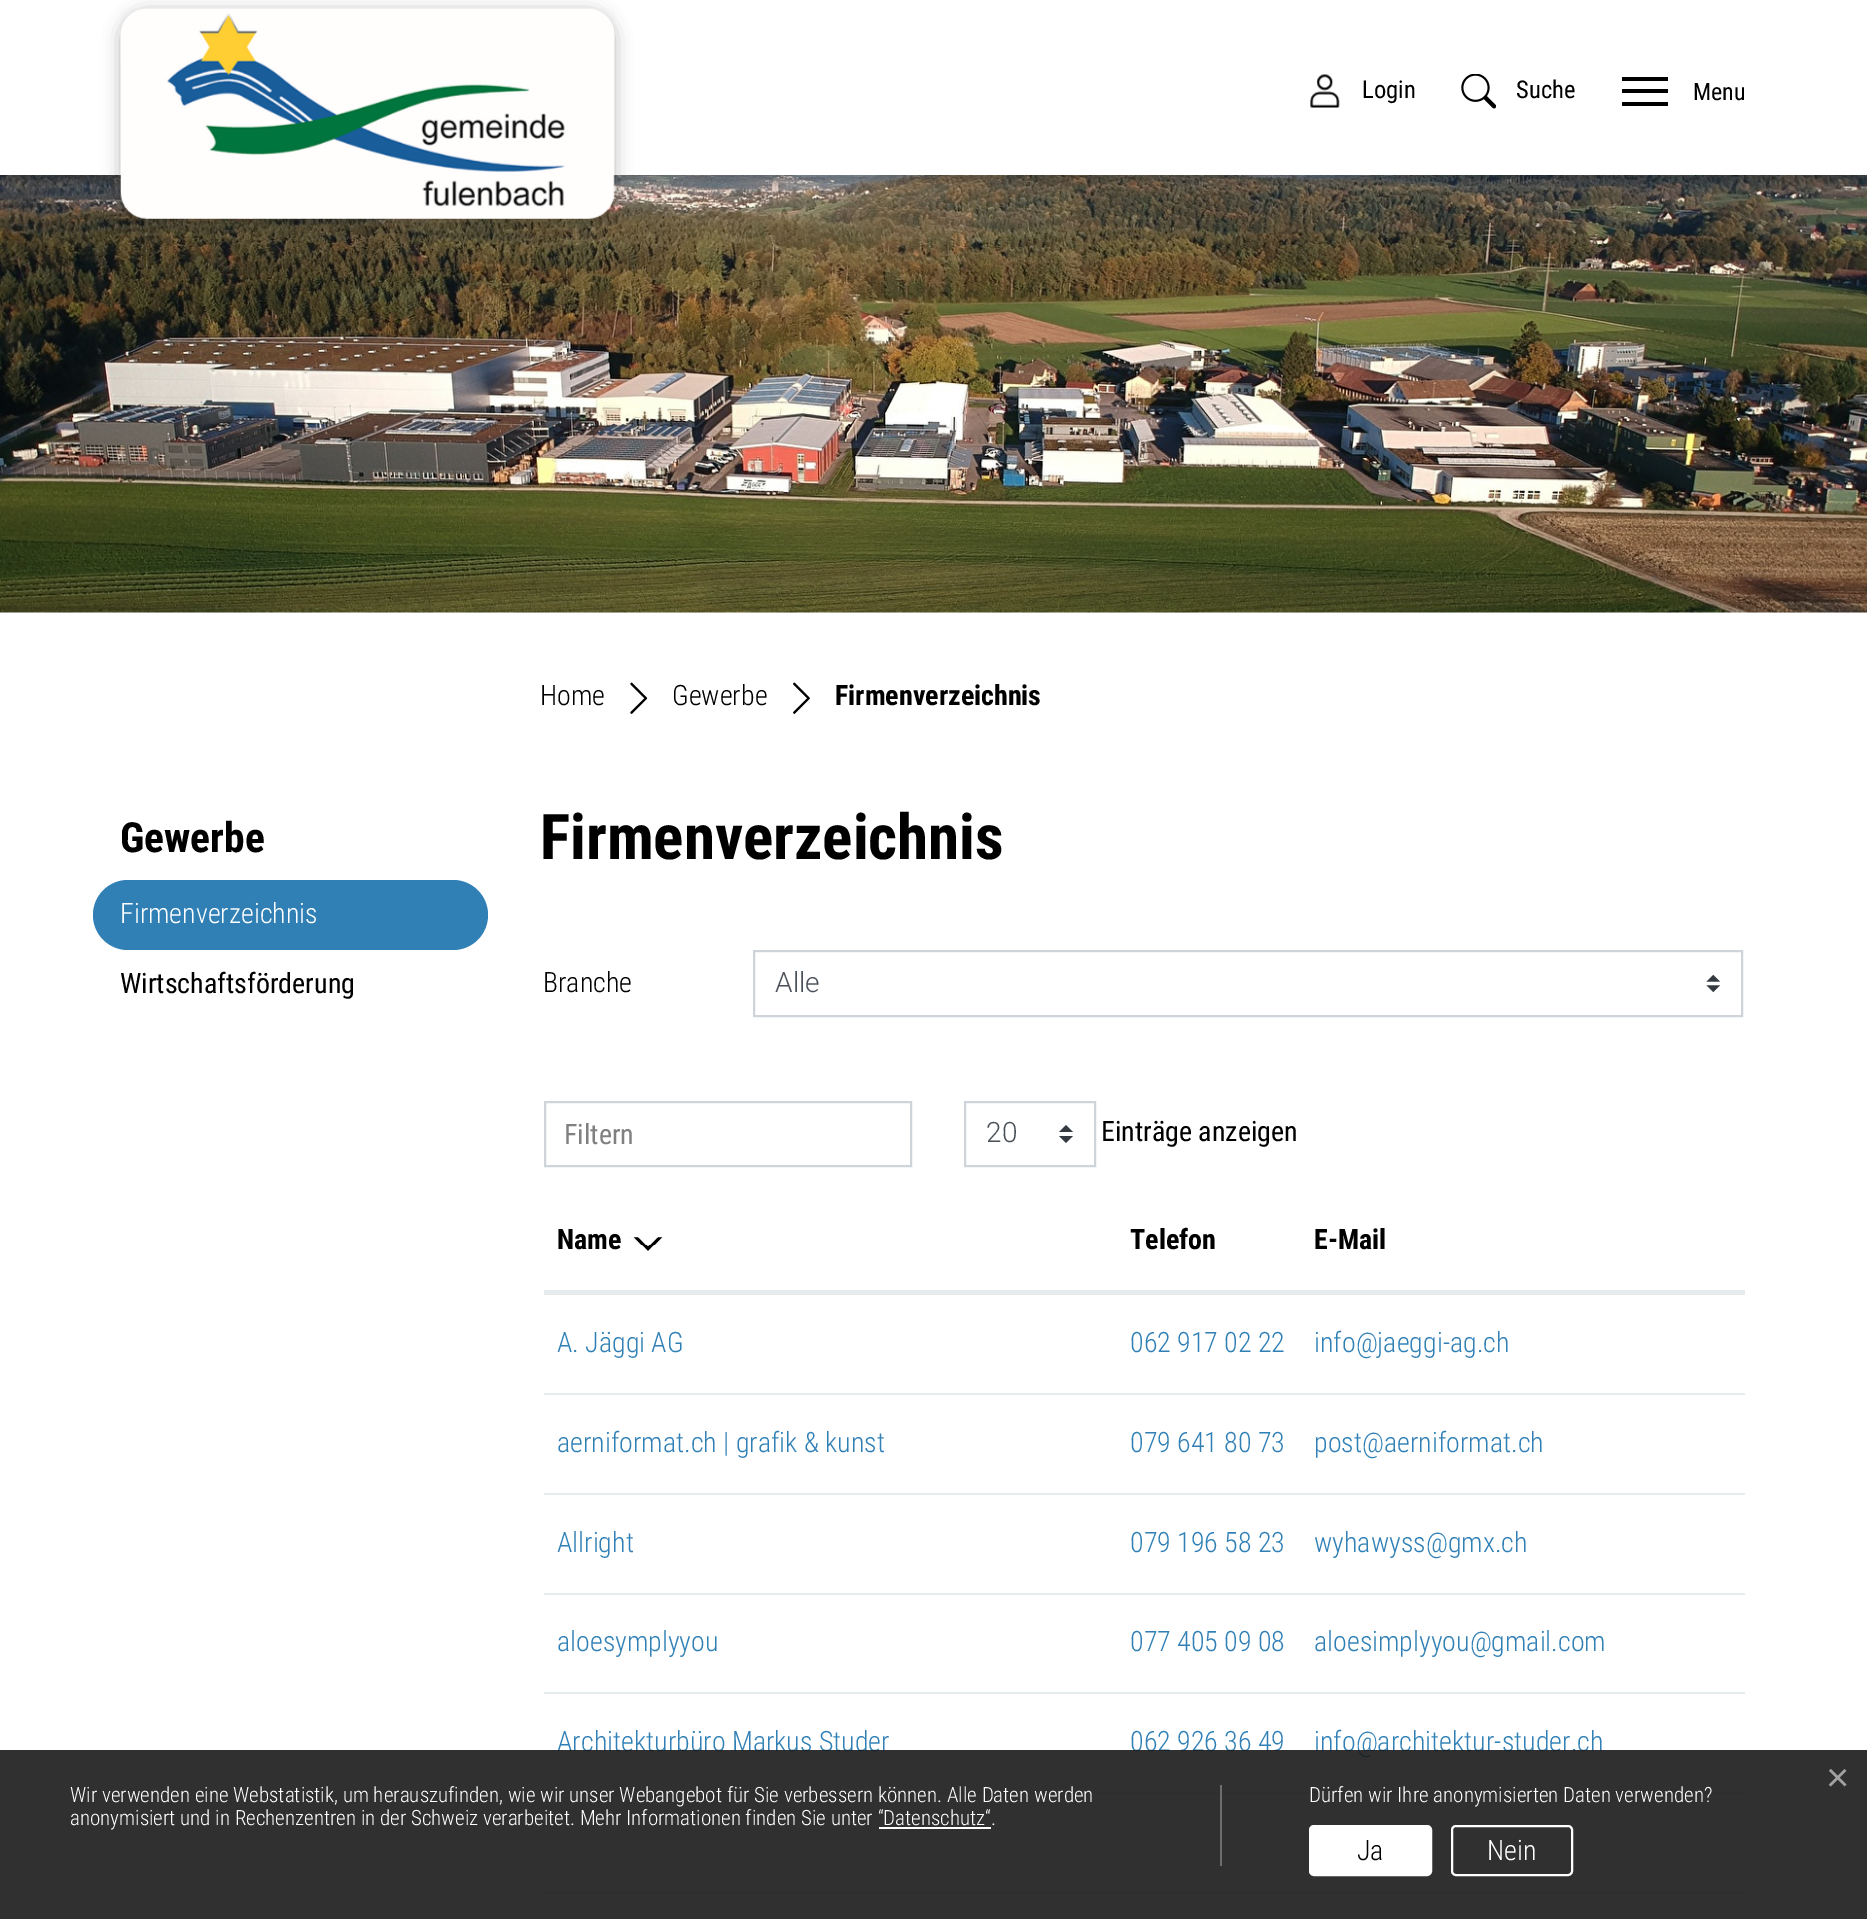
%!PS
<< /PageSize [1867 1919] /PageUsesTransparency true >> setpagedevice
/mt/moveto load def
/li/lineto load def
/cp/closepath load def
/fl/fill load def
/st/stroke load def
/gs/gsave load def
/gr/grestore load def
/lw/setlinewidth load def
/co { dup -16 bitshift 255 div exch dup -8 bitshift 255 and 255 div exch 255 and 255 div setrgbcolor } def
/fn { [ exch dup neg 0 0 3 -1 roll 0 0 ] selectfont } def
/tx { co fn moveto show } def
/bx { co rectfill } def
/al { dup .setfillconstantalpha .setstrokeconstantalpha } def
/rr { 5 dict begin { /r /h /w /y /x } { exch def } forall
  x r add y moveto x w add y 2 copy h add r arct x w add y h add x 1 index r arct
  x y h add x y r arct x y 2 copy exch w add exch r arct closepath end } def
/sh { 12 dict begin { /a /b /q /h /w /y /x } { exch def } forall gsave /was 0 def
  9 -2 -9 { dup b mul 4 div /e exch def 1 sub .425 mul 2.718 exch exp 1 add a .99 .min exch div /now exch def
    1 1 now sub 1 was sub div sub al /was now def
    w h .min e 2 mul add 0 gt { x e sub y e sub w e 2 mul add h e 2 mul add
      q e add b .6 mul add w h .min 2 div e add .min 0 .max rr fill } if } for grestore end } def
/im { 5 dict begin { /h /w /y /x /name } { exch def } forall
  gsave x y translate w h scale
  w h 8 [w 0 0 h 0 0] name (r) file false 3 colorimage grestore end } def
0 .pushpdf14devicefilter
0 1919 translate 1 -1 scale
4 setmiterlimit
0 0 1867 1919 16#FFFFFF bx
(media/4.raw) 0 175 1867 438 im
16#000000 co
121 12 493 210 26 9 .3 sh
gs
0 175 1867 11 rectclip
0 172 1867 8 0 4.5 .25 sh
gr
(media/1.raw) 120 8 495 211 im
(media/2.raw) 1310 74 30 34 im
(media/3.raw) 1461 74 35 35 im
1622 77 46 4 16#000000 bx
1622 89 46 4 16#000000 bx
1622 102 46 4 16#000000 bx
(media/5.raw) 630 682 18 32 im
(media/6.raw) 793 682 17 32 im
16#3080B6 co
93 880 395 70 35 rr fl
(media/7.raw) 1706 975 14 17 im
16#CED4DA co
2 lw
754 951 988 65 rectstroke
545 1102 366 64 rectstroke
16#343A40 co
1066 1125 mt 1059 1132 li 1073 1132 li cp 1066 1143 mt 1059 1136 li 1073 1136 li cp fl
16#CED4DA co
965 1102 130 64 rectstroke
544 1290 1201 4 16#E6ECEE bx
(media/8.raw) 630 1237 33 14 im
544 1294 1201 1 16#E6ECEE bx
544 1393 1201 2 16#E6ECEE bx
544 1493 1201 2 16#E6ECEE bx
544 1593 1201 2 16#E6ECEE bx
544 1692 1201 2 16#E6ECEE bx
544 1792 1201 2 16#E6ECEE bx
544 1892 1201 2 16#E6ECEE bx
(Login) 1362 98 /RobotoCondensed-Regular 24.5 16#000000 tx
(Suche) 1516 98 /RobotoCondensed-Regular 24.5 16#000000 tx
(Menu) 1693 100 /RobotoCondensed-Regular 24 16#000000 tx
(Home) 540 705 /RobotoCondensed-Light 28 16#000000 tx
(Gewerbe) 672 705 /RobotoCondensed-Light 28 16#000000 tx
(Firmenverzeichnis) 835 705 /RobotoCondensed-Bold 28 16#000000 tx
(Gewerbe) 120 852 /RobotoCondensed-Bold 41.5 16#000000 tx
(Firmenverzeichnis) 120 923 /RobotoCondensed-Light 28 16#FFFFFF tx
(Wirtschaftsförderung) 120 993 /RobotoCondensed-Regular 28 16#000000 tx
(Firmenverzeichnis) 540 859 /RobotoCondensed-Bold 63 16#000000 tx
(Branche) 543 992 /RobotoCondensed-Light 28 16#000000 tx
(Alle) 775 992 /Roboto-Light 28 16#495057 tx
(Filtern) 564 1144 /RobotoCondensed-Regular 28 16#808080 tx
(20) 986 1142 /Roboto-Light 28 16#495057 tx
(Einträge anzeigen) 1101 1141 /RobotoCondensed-Regular 28 16#000000 tx
(Name) 557 1249 /RobotoCondensed-Bold 28 16#000000 tx
(Telefon) 1130 1249 /RobotoCondensed-Bold 28 16#000000 tx
(E-Mail) 1314 1249 /RobotoCondensed-Bold 28 16#000000 tx
(A. Jäggi AG) 557 1352 /RobotoCondensed-Light 28 16#3080B6 tx
(062 917 02 22) 1130 1352 /RobotoCondensed-Light 28 16#3080B6 tx
(info@jaeggi-ag.ch) 1314 1352 /RobotoCondensed-Light 28 16#3080B6 tx
(aerniformat.ch | grafik & kunst) 557 1452 /RobotoCondensed-Light 28 16#3080B6 tx
(079 641 80 73) 1130 1452 /RobotoCondensed-Light 28 16#3080B6 tx
(post@aerniformat.ch) 1314 1452 /RobotoCondensed-Light 28 16#3080B6 tx
(Allright) 557 1552 /RobotoCondensed-Light 28 16#3080B6 tx
(079 196 58 23) 1130 1552 /RobotoCondensed-Light 28 16#3080B6 tx
(wyhawyss@gmx.ch) 1314 1552 /RobotoCondensed-Light 28 16#3080B6 tx
(aloesymplyyou) 557 1651 /RobotoCondensed-Light 28 16#3080B6 tx
(077 405 09 08) 1130 1651 /RobotoCondensed-Light 28 16#3080B6 tx
(aloesimplyyou@gmail.com) 1314 1651 /RobotoCondensed-Light 28 16#3080B6 tx
(Architekturbüro Markus Studer) 557 1751 /RobotoCondensed-Light 28 16#3080B6 tx
(062 926 36 49) 1130 1751 /RobotoCondensed-Light 28 16#3080B6 tx
(info@architektur-studer.ch) 1314 1751 /RobotoCondensed-Light 28 16#3080B6 tx
0.9 al
0 1750 1867 169 16#191919 bx
1 al
(×) 1826 1791 /LiberationSans-Regular 40 16#A2A2A2 tx
1220 1785 2 81 16#6D6D6D bx
(Wir verwenden eine Webstatistik, um herauszufinden, wie wir unser Webangebot für Sie verbessern können. Alle Daten werden) 70 1802 /RobotoCondensed-Light 21 16#FFFFFF tx
(anonymisiert und in Rechenzentren in der Schweiz verarbeitet. Mehr Informationen finden Sie unter “Datenschutz“.) 70 1825 /RobotoCondensed-Light 21 16#FFFFFF tx
879 1827 112 2 16#FFFFFF bx
(Dürfen wir Ihre anonymisierten Daten verwenden?) 1309 1802 /RobotoCondensed-Light 21 16#FFFFFF tx
1310 1826 121 49 4 rr gs fl gr
st
(Ja) 1357 1860 /RobotoCondensed-Light 28 16#000000 tx
16#FFFFFF co
1452 1826 120 49 4 rr st
(Nein) 1487 1860 /RobotoCondensed-Light 28 16#FFFFFF tx
.poppdf14devicefilter showpage
